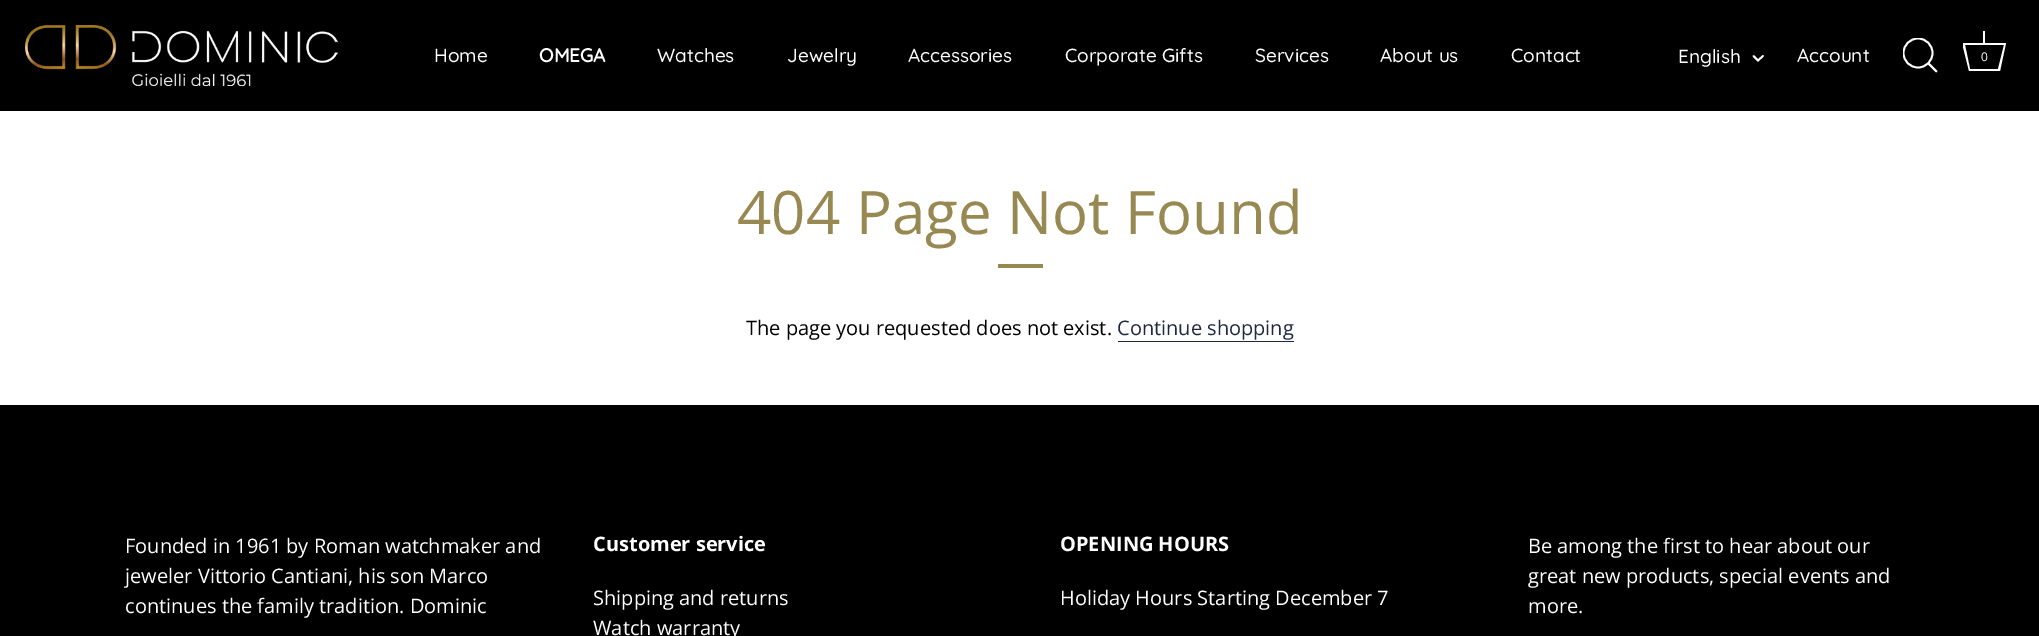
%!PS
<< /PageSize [2039 636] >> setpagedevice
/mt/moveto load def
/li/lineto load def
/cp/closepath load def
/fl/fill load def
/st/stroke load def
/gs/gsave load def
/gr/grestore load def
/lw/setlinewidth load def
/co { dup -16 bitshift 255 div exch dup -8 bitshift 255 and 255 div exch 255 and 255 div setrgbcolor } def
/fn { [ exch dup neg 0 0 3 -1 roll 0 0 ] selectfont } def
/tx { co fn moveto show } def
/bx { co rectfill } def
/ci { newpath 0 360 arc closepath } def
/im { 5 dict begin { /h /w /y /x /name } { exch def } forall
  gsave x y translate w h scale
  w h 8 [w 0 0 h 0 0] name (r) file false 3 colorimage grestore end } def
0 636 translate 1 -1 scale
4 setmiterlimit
0 0 2039 636 16#FFFFFF bx
0 0 2039 111 16#000000 bx
(media/1.raw) 25 25 313 61 im
16#FFFFFF co
1.8 lw
1 setlinecap
1753.5 56 mt 1758 60.5 li 1763 56 li st
gs
1903 38 36 36 rectclip
0 setlinecap
1918 53 14.5 ci st
gr
1 setlinejoin
1936.5 71.5 mt 1928.5 63.5 li st
1983 31 2 12 16#FFFFFF bx
gs
1963 29 43 44 rectclip
2004 45 mt 1998 69 li 1970 69 li 1965 45 li 2004 45 li 2006 43 mt 1962 43 li 1969 71 li 2000 71 li cp fl
gr
998 264 45 4 16#988852 bx
1118 341 176 1 16#1F2941 bx
0 405 2039 231 16#000000 bx
(Home) 434 62 /Quicksand-Medium 19 16#FFFFFF tx
(OMEGA) 539 62 /Quicksand-Bold 19 16#FFFFFF tx
(Watches) 657 62 /Quicksand-Medium 19 16#FFFFFF tx
(Jewelry) 787 62 /Quicksand-Medium 19 16#FFFFFF tx
(Accessories) 908 62 /Quicksand-Medium 19 16#FFFFFF tx
(Corporate Gifts) 1065 62 /Quicksand-Medium 19 16#FFFFFF tx
(Services) 1255 62 /Quicksand-Medium 19 16#FFFFFF tx
(About us) 1380 62 /Quicksand-Medium 19 16#FFFFFF tx
(Contact) 1511 62 /Quicksand-Medium 19 16#FFFFFF tx
(English) 1678 63 /Quicksand-Medium 19 16#FFFFFF tx
(Account) 1797 62 /Quicksand-Medium 19 16#FFFFFF tx
(0) 1981 61 /OpenSans-Regular 12 16#FFFFFF tx
(404 Page Not Found) 737 234 /OpenSans-Regular 60 16#988852 tx
(The page you requested does not exist.) 746 335 /OpenSans-Regular 20 16#000000 tx
(Continue shopping) 1117 335 /OpenSans-Regular 20 16#1F2941 tx
(Founded in 1961 by Roman watchmaker and) 125 553 /OpenSans-Regular 20 16#FFFFFF tx
(jeweler Vittorio Cantiani, his son Marco) 125 583 /OpenSans-Regular 20 16#FFFFFF tx
(continues the family tradition. Dominic) 125 613 /OpenSans-Regular 20 16#FFFFFF tx
(Customer service) 593 551 /OpenSans-Bold 20 16#FFFFFF tx
(Shipping and returns) 593 605 /OpenSans-Regular 20 16#FFFFFF tx
(Watch warranty) 593 635 /OpenSans-Regular 20 16#FFFFFF tx
(OPENING HOURS) 1060 551 /OpenSans-Bold 20 16#FFFFFF tx
(Holiday Hours Starting December 7) 1060 605 /OpenSans-Regular 20 16#FFFFFF tx
(Be among the first to hear about our) 1528 553 /OpenSans-Regular 20 16#FFFFFF tx
(great new products, special events and) 1528 583 /OpenSans-Regular 20 16#FFFFFF tx
(more.) 1528 613 /OpenSans-Regular 20 16#FFFFFF tx
showpage
